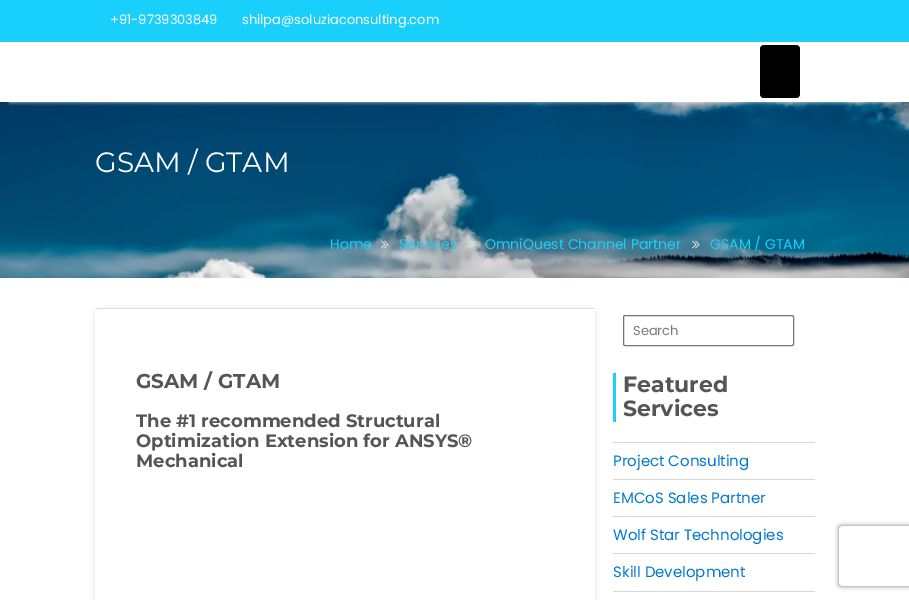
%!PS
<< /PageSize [909 600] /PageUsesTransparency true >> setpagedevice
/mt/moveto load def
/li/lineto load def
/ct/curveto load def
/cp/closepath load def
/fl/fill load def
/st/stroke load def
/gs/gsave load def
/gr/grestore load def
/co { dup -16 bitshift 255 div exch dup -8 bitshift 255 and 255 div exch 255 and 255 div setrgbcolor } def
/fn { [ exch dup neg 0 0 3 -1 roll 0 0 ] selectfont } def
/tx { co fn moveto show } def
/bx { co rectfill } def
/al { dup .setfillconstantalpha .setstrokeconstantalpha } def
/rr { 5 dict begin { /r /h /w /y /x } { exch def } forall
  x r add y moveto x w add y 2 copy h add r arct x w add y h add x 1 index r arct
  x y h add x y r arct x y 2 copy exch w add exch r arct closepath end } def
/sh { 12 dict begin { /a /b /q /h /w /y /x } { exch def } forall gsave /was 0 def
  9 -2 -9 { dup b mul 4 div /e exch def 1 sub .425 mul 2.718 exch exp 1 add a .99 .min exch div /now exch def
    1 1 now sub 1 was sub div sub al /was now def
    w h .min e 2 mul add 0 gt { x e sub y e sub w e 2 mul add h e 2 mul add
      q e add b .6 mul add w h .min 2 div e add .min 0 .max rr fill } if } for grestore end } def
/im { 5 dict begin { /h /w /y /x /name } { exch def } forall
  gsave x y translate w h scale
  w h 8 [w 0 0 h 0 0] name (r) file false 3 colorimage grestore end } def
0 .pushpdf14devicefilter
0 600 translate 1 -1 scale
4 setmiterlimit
0 0 909 600 16#FFFFFF bx
0 0 909 42 16#19CFFC bx
(media/1.raw) 0 102 909 176 im
gs
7 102 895 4 rectclip
16#EEEEEE co
10 62 889 40 0 2 .9 sh
gr
16#000000 co
760 45 40 53 4 rr fl
(media/2.raw) 381 240 8 9 im
(media/3.raw) 467 240 8 9 im
(media/4.raw) 692 240 8 9 im
95 310 500 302 4 2.5 .13 sh
16#FFFFFF co
95 308 500 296 4 rr fl
95 308 500 1 16#DDDDDD bx
16#767676 co
623.5 315.5 170 30 1.5 rr st
613 373 3 49 16#19CFFC bx
613 442 202 1 16#D7D7D7 bx
613 479 202 1 16#D7D7D7 bx
613 516 202 1 16#D7D7D7 bx
613 553 202 1 16#D7D7D7 bx
613 591 202 1 16#D7D7D7 bx
gs
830 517 mt 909 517 li 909 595 li 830 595 li cp 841 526 mt 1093 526 li 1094 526 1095 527 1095 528 ct 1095 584 li 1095 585 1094 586 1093 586 ct 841 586 li 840 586 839 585 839 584 ct 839 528 li 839 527 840 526 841 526 ct cp eoclip newpath
16#808080 co
839 526 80 60 2 2.5 1 sh
gr
(+91-9739303849) 110 24 /Poppins-Regular 13 16#FFFFFF tx
(shilpa@soluziaconsulting.com) 242 24 /Poppins-Regular 13 16#FFFFFF tx
(GSAM / GTAM) 95 172 /Montserrat-Regular 28 16#FFFFFF tx
(Home) 330 249 /Poppins-Regular 14 16#19CFFC tx
(Services) 399 249 /Poppins-Regular 14 16#19CFFC tx
(OmniQuest Channel Partner) 485 249 /Poppins-Regular 14 16#19CFFC tx
(GSAM / GTAM) 710 249 /Poppins-Regular 14 16#19CFFC tx
(GSAM / GTAM) 136 388 /Montserrat-Bold 20 16#555555 tx
(The #1 recommended Structural) 136 427 /Montserrat-Bold 18 16#555555 tx
(Optimization Extension for ANSYS®) 136 447 /Montserrat-Bold 18 16#555555 tx
(Mechanical) 136 467 /Montserrat-Bold 18 16#555555 tx
(Search) 633 335 /Poppins-Regular 13 16#757575 tx
(Featured) 623 392 /Montserrat-Bold 22 16#555555 tx
(Services) 623 416 /Montserrat-Bold 22 16#555555 tx
(Project Consulting) 613 466 /Poppins-Regular 15 16#007ACC tx
(EMCoS Sales Partner) 613 503 /Poppins-Regular 15 16#007ACC tx
(Wolf Star Technologies) 613 540 /Poppins-Regular 15 16#007ACC tx
(Skill Development) 613 577 /Poppins-Regular 15 16#007ACC tx
.poppdf14devicefilter showpage
